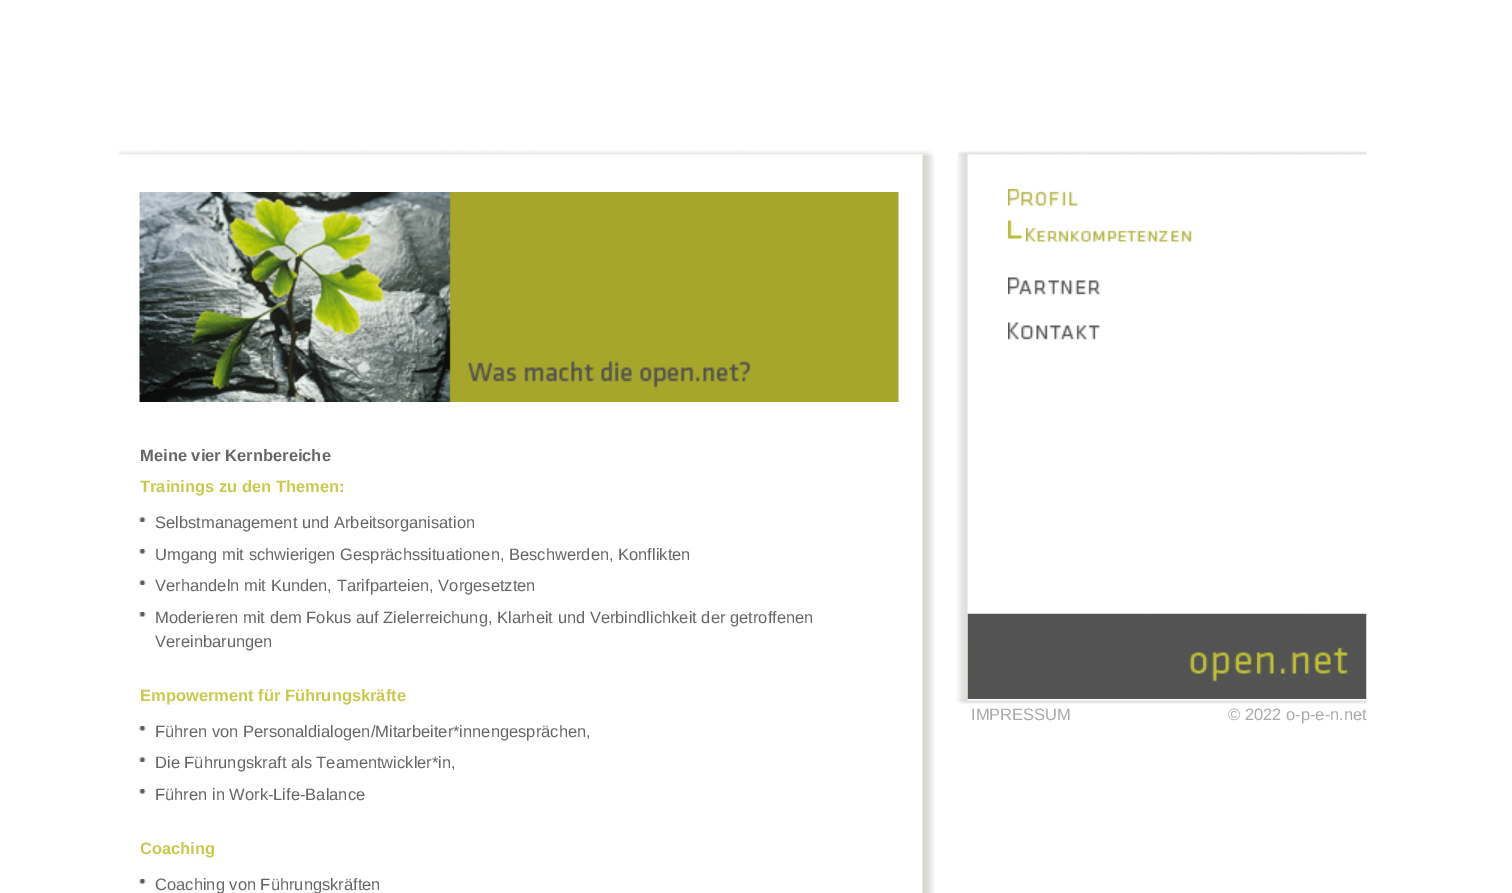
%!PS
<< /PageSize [1512 893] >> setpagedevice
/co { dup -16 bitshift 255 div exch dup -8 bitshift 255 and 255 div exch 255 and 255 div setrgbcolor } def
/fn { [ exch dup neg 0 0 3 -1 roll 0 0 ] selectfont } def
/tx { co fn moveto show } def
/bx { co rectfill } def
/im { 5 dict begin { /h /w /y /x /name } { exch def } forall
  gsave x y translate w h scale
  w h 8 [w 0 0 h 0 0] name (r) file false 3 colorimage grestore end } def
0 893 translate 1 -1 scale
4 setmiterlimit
0 0 1512 893 16#FFFFFF bx
(media/1.raw) 118 150 816 6 im
(media/2.raw) 922 156 13 737 im
(media/3.raw) 139 192 760 210 im
(media/4.raw) 139 517 7 5 im
(media/5.raw) 139 549 7 5 im
(media/4.raw) 139 580 7 5 im
(media/5.raw) 139 612 7 5 im
(media/5.raw) 139 726 7 5 im
(media/4.raw) 139 757 7 5 im
(media/5.raw) 139 789 7 5 im
(media/5.raw) 139 879 7 5 im
(media/6.raw) 957 151 410 5 im
(media/7.raw) 957 156 11 543 im
(media/8.raw) 1008 189 71 17 im
(media/9.raw) 1008 220 14 19 im
(media/10.raw) 1026 228 166 14 im
(media/11.raw) 1008 277 92 18 im
(media/12.raw) 1008 322 92 18 im
(media/13.raw) 967 613 400 86 im
(media/14.raw) 957 699 410 5 im
(Meine vier Kernbereiche) 140 461 /LiberationSans-Bold 16.5 16#666666 tx
(Trainings zu den Themen:) 140 492 /LiberationSans-Bold 16.5 16#C8CA4E tx
(Selbstmanagement und Arbeitsorganisation) 155 528 /LiberationSans-Regular 16.5 16#666666 tx
(Umgang mit schwierigen Gesprächssituationen, Beschwerden, Konflikten) 155 560 /LiberationSans-Regular 16.5 16#666666 tx
(Verhandeln mit Kunden, Tarifparteien, Vorgesetzten) 155 591 /LiberationSans-Regular 16.5 16#666666 tx
(Moderieren mit dem Fokus auf Zielerreichung, Klarheit und Verbindlichkeit der getroffenen) 155 623 /LiberationSans-Regular 16.5 16#666666 tx
(Vereinbarungen) 155 647 /LiberationSans-Regular 16.5 16#666666 tx
(Empowerment für Führungskräfte) 140 701 /LiberationSans-Bold 16.5 16#C8CA4E tx
(Führen von Personaldialogen/Mitarbeiter*innengesprächen,) 155 737 /LiberationSans-Regular 16.5 16#666666 tx
(Die Führungskraft als Teamentwickler*in,) 155 768 /LiberationSans-Regular 16.5 16#666666 tx
(Führen in Work-Life-Balance) 155 800 /LiberationSans-Regular 16.5 16#666666 tx
(Coaching) 140 854 /LiberationSans-Bold 16.5 16#C8CA4E tx
(Coaching von Führungskräften) 155 890 /LiberationSans-Regular 16.5 16#666666 tx
(IMPRESSUM) 971 720 /LiberationSans-Regular 16.5 16#AAAAAA tx
(© 2022 o-p-e-n.net) 1228 720 /LiberationSans-Regular 16.5 16#AAAAAA tx
showpage
